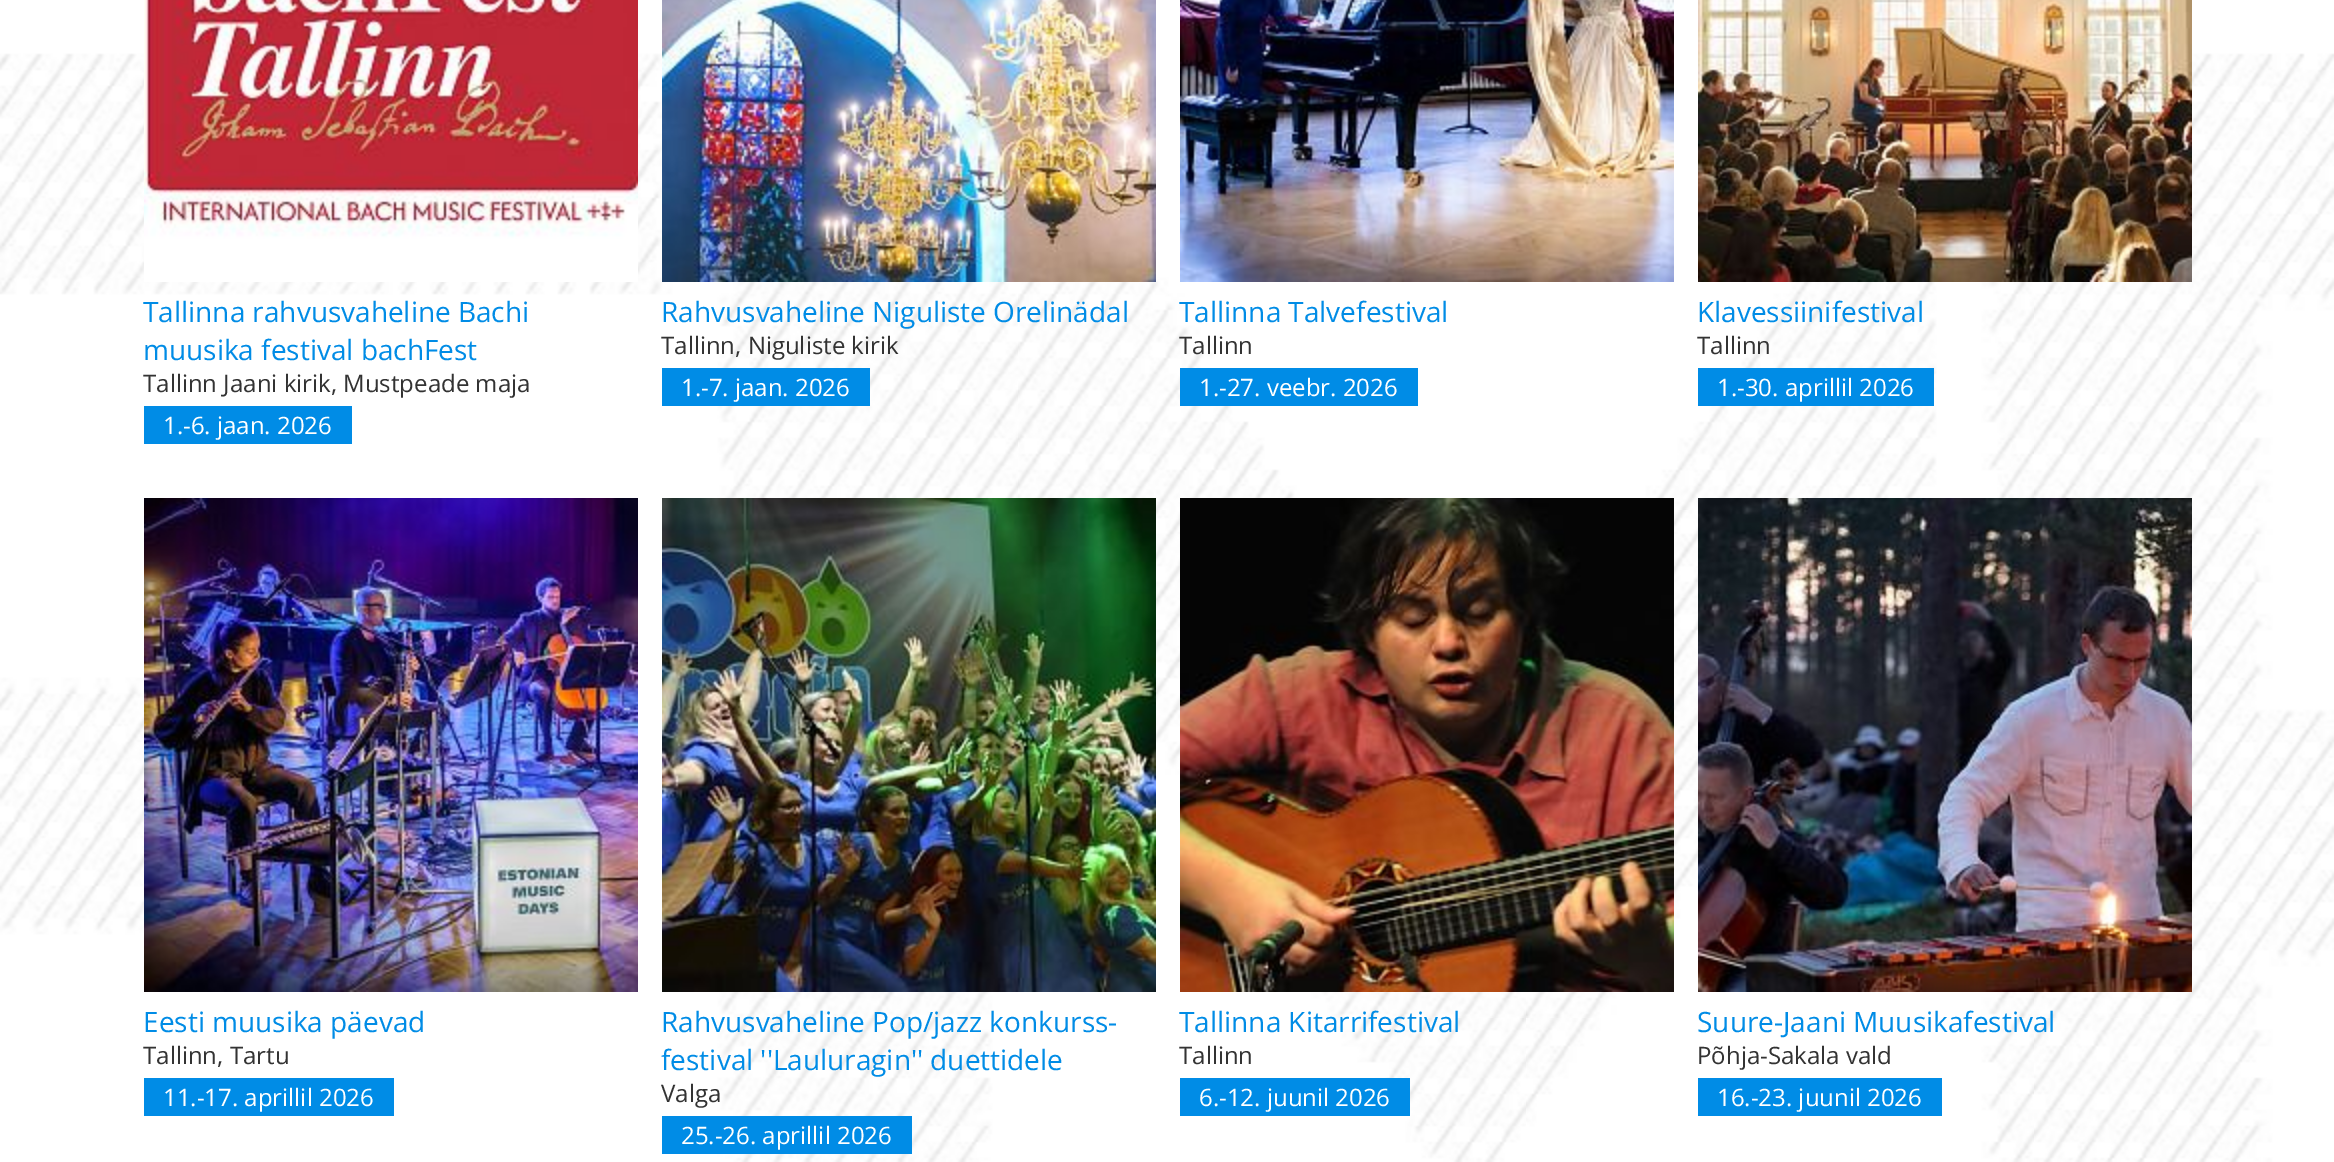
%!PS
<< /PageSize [2334 1162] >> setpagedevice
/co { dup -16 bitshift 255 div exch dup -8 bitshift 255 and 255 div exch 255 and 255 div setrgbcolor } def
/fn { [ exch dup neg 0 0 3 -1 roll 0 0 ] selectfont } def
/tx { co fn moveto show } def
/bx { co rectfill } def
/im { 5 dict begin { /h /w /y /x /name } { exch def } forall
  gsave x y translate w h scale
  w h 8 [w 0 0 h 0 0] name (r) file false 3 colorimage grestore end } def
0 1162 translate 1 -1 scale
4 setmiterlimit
0 0 2334 1162 16#FFFFFF bx
(media/1.raw) 0 53 2334 1109 im
(media/2.raw) 144 0 494 282 im
144 406 208 38 16#008CE6 bx
(media/3.raw) 662 0 494 282 im
662 368 208 38 16#008CE6 bx
(media/4.raw) 1180 0 494 282 im
1180 368 238 38 16#008CE6 bx
(media/5.raw) 1698 0 494 282 im
1698 368 236 38 16#008CE6 bx
(media/6.raw) 144 498 494 494 im
144 1078 250 38 16#008CE6 bx
(media/7.raw) 662 498 494 494 im
662 1116 250 38 16#008CE6 bx
(media/8.raw) 1180 498 494 494 im
1180 1078 230 38 16#008CE6 bx
(media/9.raw) 1698 498 494 494 im
1698 1078 244 38 16#008CE6 bx
(Tallinna rahvusvaheline Bachi) 143 322 /OpenSans-Regular 28 16#008CE6 tx
(muusika festival bachFest) 143 360 /OpenSans-Regular 28 16#008CE6 tx
(Tallinn Jaani kirik, Mustpeade maja) 143 392 /OpenSans-Regular 24 16#333333 tx
(1.-6. jaan. 2026) 163 434 /OpenSans-Regular 24 16#FFFFFF tx
(Rahvusvaheline Niguliste Orelinädal) 661 322 /OpenSans-Regular 28 16#008CE6 tx
(Tallinn, Niguliste kirik) 661 354 /OpenSans-Regular 24 16#333333 tx
(1.-7. jaan. 2026) 681 396 /OpenSans-Regular 24 16#FFFFFF tx
(Tallinna Talvefestival) 1179 322 /OpenSans-Regular 28 16#008CE6 tx
(Tallinn) 1179 354 /OpenSans-Regular 24 16#333333 tx
(1.-27. veebr. 2026) 1199 396 /OpenSans-Regular 24 16#FFFFFF tx
(Klavessiinifestival) 1697 322 /OpenSans-Regular 28 16#008CE6 tx
(Tallinn) 1697 354 /OpenSans-Regular 24 16#333333 tx
(1.-30. aprillil 2026) 1717 396 /OpenSans-Regular 24 16#FFFFFF tx
(Eesti muusika päevad) 143 1032 /OpenSans-Regular 28 16#008CE6 tx
(Tallinn, Tartu) 143 1064 /OpenSans-Regular 24 16#333333 tx
(11.-17. aprillil 2026) 163 1106 /OpenSans-Regular 24 16#FFFFFF tx
(Rahvusvaheline Pop/jazz konkurss-) 661 1032 /OpenSans-Regular 28 16#008CE6 tx
(festival ''Lauluragin'' duettidele) 661 1070 /OpenSans-Regular 28 16#008CE6 tx
(Valga) 661 1102 /OpenSans-Regular 24 16#333333 tx
(25.-26. aprillil 2026) 681 1144 /OpenSans-Regular 24 16#FFFFFF tx
(Tallinna Kitarrifestival) 1179 1032 /OpenSans-Regular 28 16#008CE6 tx
(Tallinn) 1179 1064 /OpenSans-Regular 24 16#333333 tx
(6.-12. juunil 2026) 1199 1106 /OpenSans-Regular 24 16#FFFFFF tx
(Suure-Jaani Muusikafestival) 1697 1032 /OpenSans-Regular 28 16#008CE6 tx
(Põhja-Sakala vald) 1697 1064 /OpenSans-Regular 24 16#333333 tx
(16.-23. juunil 2026) 1717 1106 /OpenSans-Regular 24 16#FFFFFF tx
showpage
